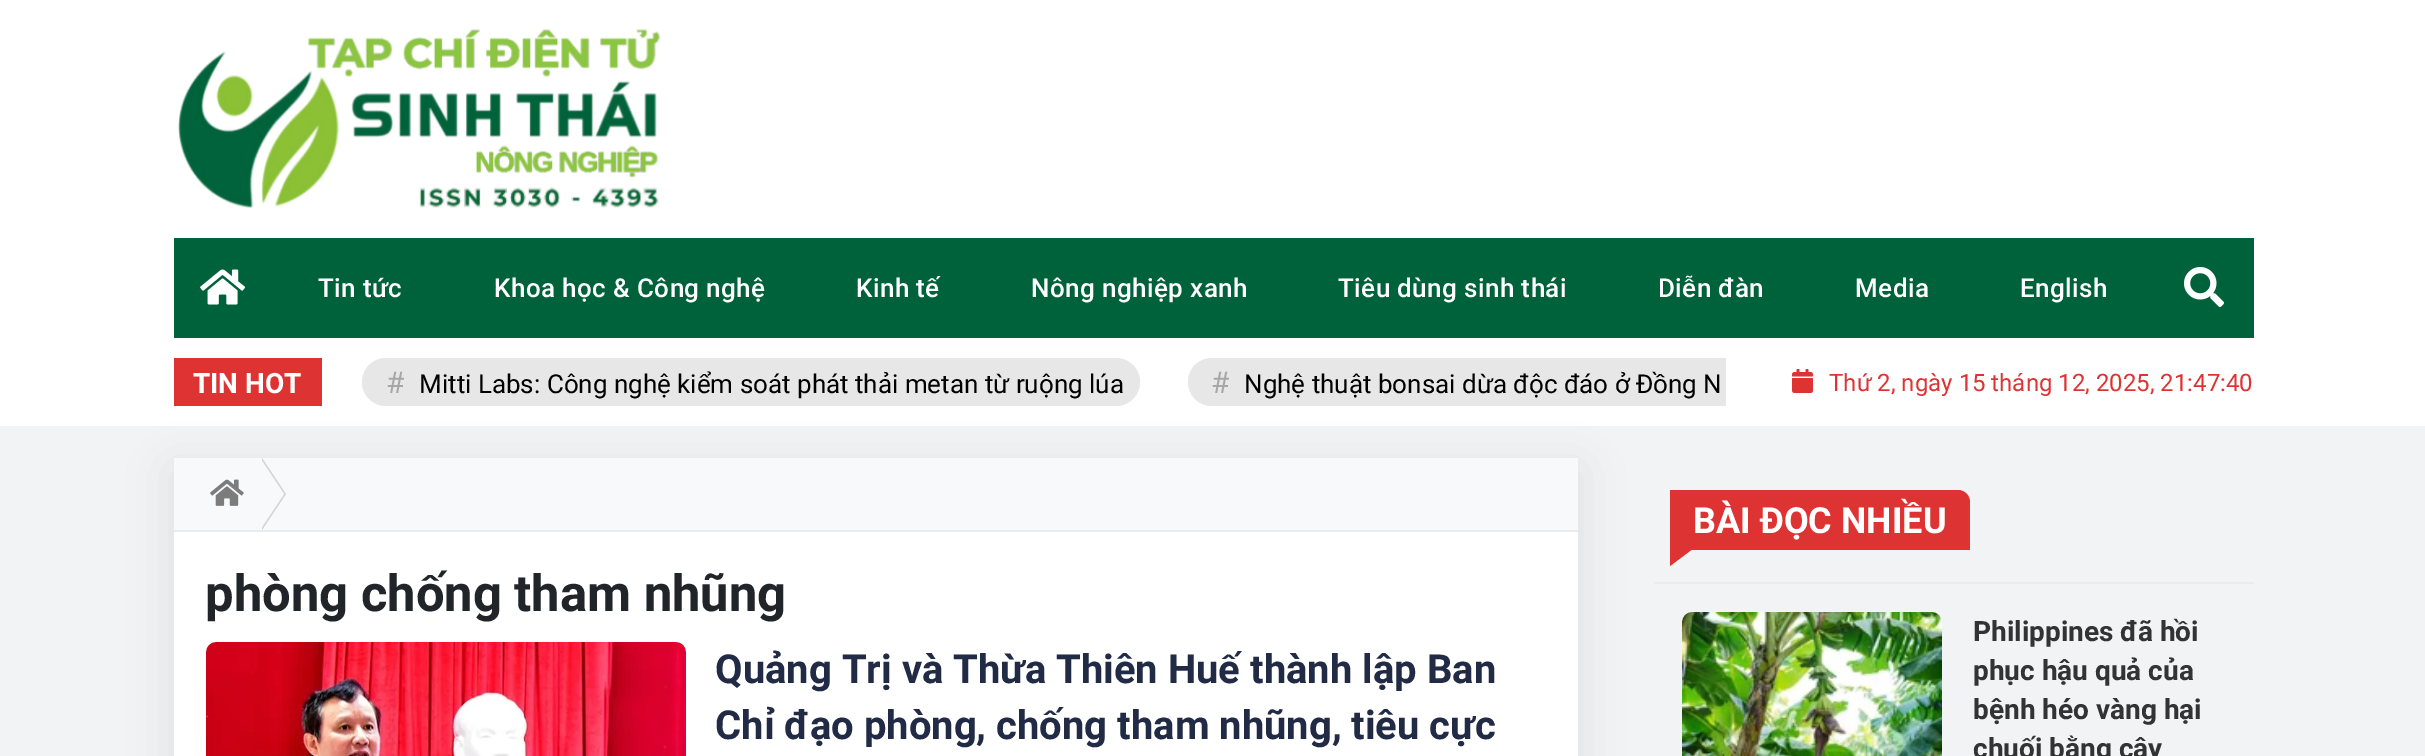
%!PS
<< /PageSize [2425 756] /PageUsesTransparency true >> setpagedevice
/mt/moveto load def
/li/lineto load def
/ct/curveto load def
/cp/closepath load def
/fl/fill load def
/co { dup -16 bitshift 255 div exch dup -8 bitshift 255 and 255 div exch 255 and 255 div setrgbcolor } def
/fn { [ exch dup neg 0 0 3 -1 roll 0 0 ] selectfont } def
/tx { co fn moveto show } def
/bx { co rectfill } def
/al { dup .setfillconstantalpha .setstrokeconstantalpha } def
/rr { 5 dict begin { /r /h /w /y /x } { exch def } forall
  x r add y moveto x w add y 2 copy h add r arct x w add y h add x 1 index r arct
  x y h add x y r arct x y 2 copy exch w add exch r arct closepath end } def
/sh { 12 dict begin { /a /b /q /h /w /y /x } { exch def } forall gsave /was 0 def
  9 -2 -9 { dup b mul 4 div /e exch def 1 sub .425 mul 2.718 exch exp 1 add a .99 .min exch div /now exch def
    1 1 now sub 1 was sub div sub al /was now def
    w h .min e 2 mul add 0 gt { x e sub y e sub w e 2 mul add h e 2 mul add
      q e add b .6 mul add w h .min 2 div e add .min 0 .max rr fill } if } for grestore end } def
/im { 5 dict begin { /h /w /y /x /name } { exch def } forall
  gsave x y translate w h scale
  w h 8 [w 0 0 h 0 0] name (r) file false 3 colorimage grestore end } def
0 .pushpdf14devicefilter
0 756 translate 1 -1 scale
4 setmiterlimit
0 0 2425 756 16#FFFFFF bx
(media/1.raw) 178 29 482 179 im
174 238 2080 100 16#00623A bx
(media/2.raw) 200 269 46 36 im
(media/3.raw) 2184 267 40 40 im
0 426 2425 330 16#F2F3F5 bx
16#000000 co
174 470 1404 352 0 22 .08 sh
174 358 148 48 16#DD3333 bx
16#E7E7E7 co
362 358 778 48 24 rr fl
1212 358 mt 1726 358 li 1726 406 li 1212 406 li 1198.5 406 1188 395.5 1188 382 ct 1188 368.5 1198.5 358 1212 358 ct cp fl
(media/4.raw) 1792 369 21 24 im
174 532 1404 224 16#FFFFFF bx
174 458 1404 72 16#F8F9FA bx
174 530 1404 2 16#EAEBEC bx
(media/5.raw) 210 479 34 27 im
16#D5D5D5 co
262 530 mt 262 458 li 286 494 li cp fl
16#F8F9FA co
260 530 mt 260 458 li 284 494 li cp fl
16#F5F4F4 co
206 642 480 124 10 rr fl
(media/6.raw) 206 642 480 114 im
1654 582 600 2 16#EAEBEC bx
16#DD3333 co
1670 490 mt 1958 490 li 1964.5 490 1970 495.5 1970 502 ct 1970 550 li 1670 550 li cp fl
1670 548 mt 1694 548 li 1670 566 li cp fl
16#F5F4F4 co
1682 612 260 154 10 rr fl
(media/7.raw) 1682 612 260 144 im
/Roboto-Medium 26 fn
16#FFFFFF co
318 297 mt .4 0 (Tin tức) ashow
494 297 mt .4 0 (Khoa học & Công nghệ) ashow
856 297 mt .4 0 (Kinh tế) ashow
1031 297 mt .4 0 (Nông nghiệp xanh) ashow
1338 297 mt .4 0 (Tiêu dùng sinh thái) ashow
1658 297 mt .4 0 (Diễn đàn) ashow
1855 297 mt .4 0 (Media) ashow
2020 297 mt .4 0 (English) ashow
(TIN HOT) 193 393 /Roboto-Bold 28 16#FFFFFF tx
(#) 386 393 /Roboto-Regular 30 16#A7A7A7 tx
(Mitti Labs: Công nghệ kiểm soát phát thải metan từ ruộng lúa) 419 393 /Roboto-Regular 26 16#000000 tx
(#) 1211 393 /Roboto-Regular 30 16#A7A7A7 tx
(Nghệ thuật bonsai dừa độc đáo ở Đồng N) 1244 393 /Roboto-Regular 26 16#000000 tx
(Thứ 2, ngày 15 tháng 12, 2025, 21:47:40) 1829 391 /Roboto-Regular 24 16#DD3333 tx
(phòng chống tham nhũng) 205 611 /Roboto-Bold 50.75 16#212529 tx
(Quảng Trị và Thừa Thiên Huế thành lập Ban) 715 683 /Roboto-Bold 40 16#222B45 tx
(Chỉ đạo phòng, chống tham nhũng, tiêu cực) 715 739 /Roboto-Bold 40 16#222B45 tx
(BÀI ĐỌC NHIỀU) 1693 533 /Roboto-Bold 36 16#FFFFFF tx
(Philippines đã hồi) 1973 641 /Roboto-Bold 28 16#333333 tx
(phục hậu quả của) 1973 680 /Roboto-Bold 28 16#333333 tx
(bệnh héo vàng hại) 1973 719 /Roboto-Bold 28 16#333333 tx
(chuối bằng cây) 1973 758 /Roboto-Bold 28 16#333333 tx
.poppdf14devicefilter showpage
